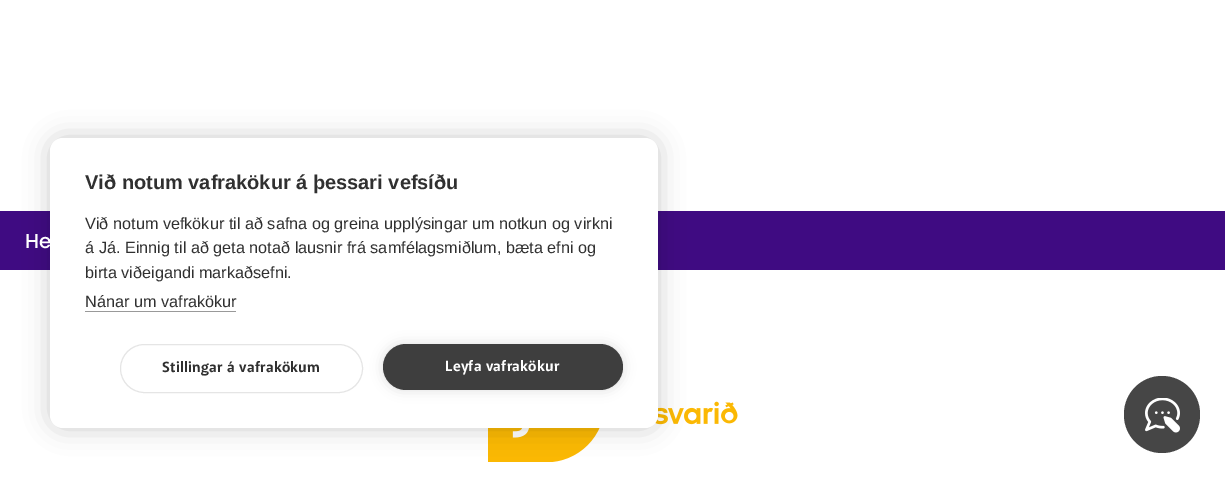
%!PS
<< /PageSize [1225 477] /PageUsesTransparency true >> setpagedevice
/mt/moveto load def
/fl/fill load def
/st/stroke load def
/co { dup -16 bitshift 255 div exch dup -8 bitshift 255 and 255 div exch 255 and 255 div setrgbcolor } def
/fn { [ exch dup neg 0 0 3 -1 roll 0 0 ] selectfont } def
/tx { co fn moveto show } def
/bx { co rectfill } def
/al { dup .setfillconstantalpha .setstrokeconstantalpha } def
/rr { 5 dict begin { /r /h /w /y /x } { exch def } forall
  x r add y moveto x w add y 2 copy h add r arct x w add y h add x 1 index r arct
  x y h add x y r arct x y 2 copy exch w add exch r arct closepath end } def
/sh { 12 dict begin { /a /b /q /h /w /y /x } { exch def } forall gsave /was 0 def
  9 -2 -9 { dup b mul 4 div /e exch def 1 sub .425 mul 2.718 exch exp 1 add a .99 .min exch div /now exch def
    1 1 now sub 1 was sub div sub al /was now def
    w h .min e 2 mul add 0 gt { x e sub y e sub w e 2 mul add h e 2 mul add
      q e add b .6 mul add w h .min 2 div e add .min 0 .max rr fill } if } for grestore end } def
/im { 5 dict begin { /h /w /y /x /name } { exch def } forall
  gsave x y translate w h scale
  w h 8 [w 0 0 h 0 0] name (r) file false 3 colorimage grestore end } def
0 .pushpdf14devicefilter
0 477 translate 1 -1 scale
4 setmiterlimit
0 0 1225 477 16#FFFFFF bx
0 211 1225 59 16#3F0B82 bx
(media/1.raw) 488 401 250 61 im
16#464646 co
1124 376 76 77 38 rr fl
(media/2.raw) 1145 398 35 35 im
16#000000 co
50 138 608 290 13 12.5 .2 sh
16#FFFFFF co
50 138 608 290 13 rr fl
85 311 151 1 16#999999 bx
16#E5E5E5 co
120.5 344.5 242 48 24 rr st
16#000000 co
383 344 240 46 23 6 .12 sh
16#3E3E3E co
383 344 240 46 23 rr fl
(He) 25 248 /Poppins-Medium 20 16#FFFFFF tx
(Við notum vafrakökur á þessari vefsíðu) 85 189 /LiberationSans-Bold 20 16#303030 tx
(Við notum vefkökur til að safna og greina upplýsingar um notkun og virkni) 85 229 /LiberationSans-Regular 16.25 16#303030 tx
(á Já. Einnig til að geta notað lausnir frá samfélagsmiðlum, bæta efni og) 85 253 /LiberationSans-Regular 16.25 16#303030 tx
(birta viðeigandi markaðsefni.) 85 278 /LiberationSans-Regular 16.25 16#303030 tx
(Nánar um vafrakökur) 85 307 /LiberationSans-Regular 16.25 16#303030 tx
/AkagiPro-SemiBold 15 fn
162 372 mt .25 0 (Stillingar á vafrakökum) ashow
16#FFFFFF co
445 371 mt .25 0 (Leyfa vafrakökur) ashow
.poppdf14devicefilter showpage
